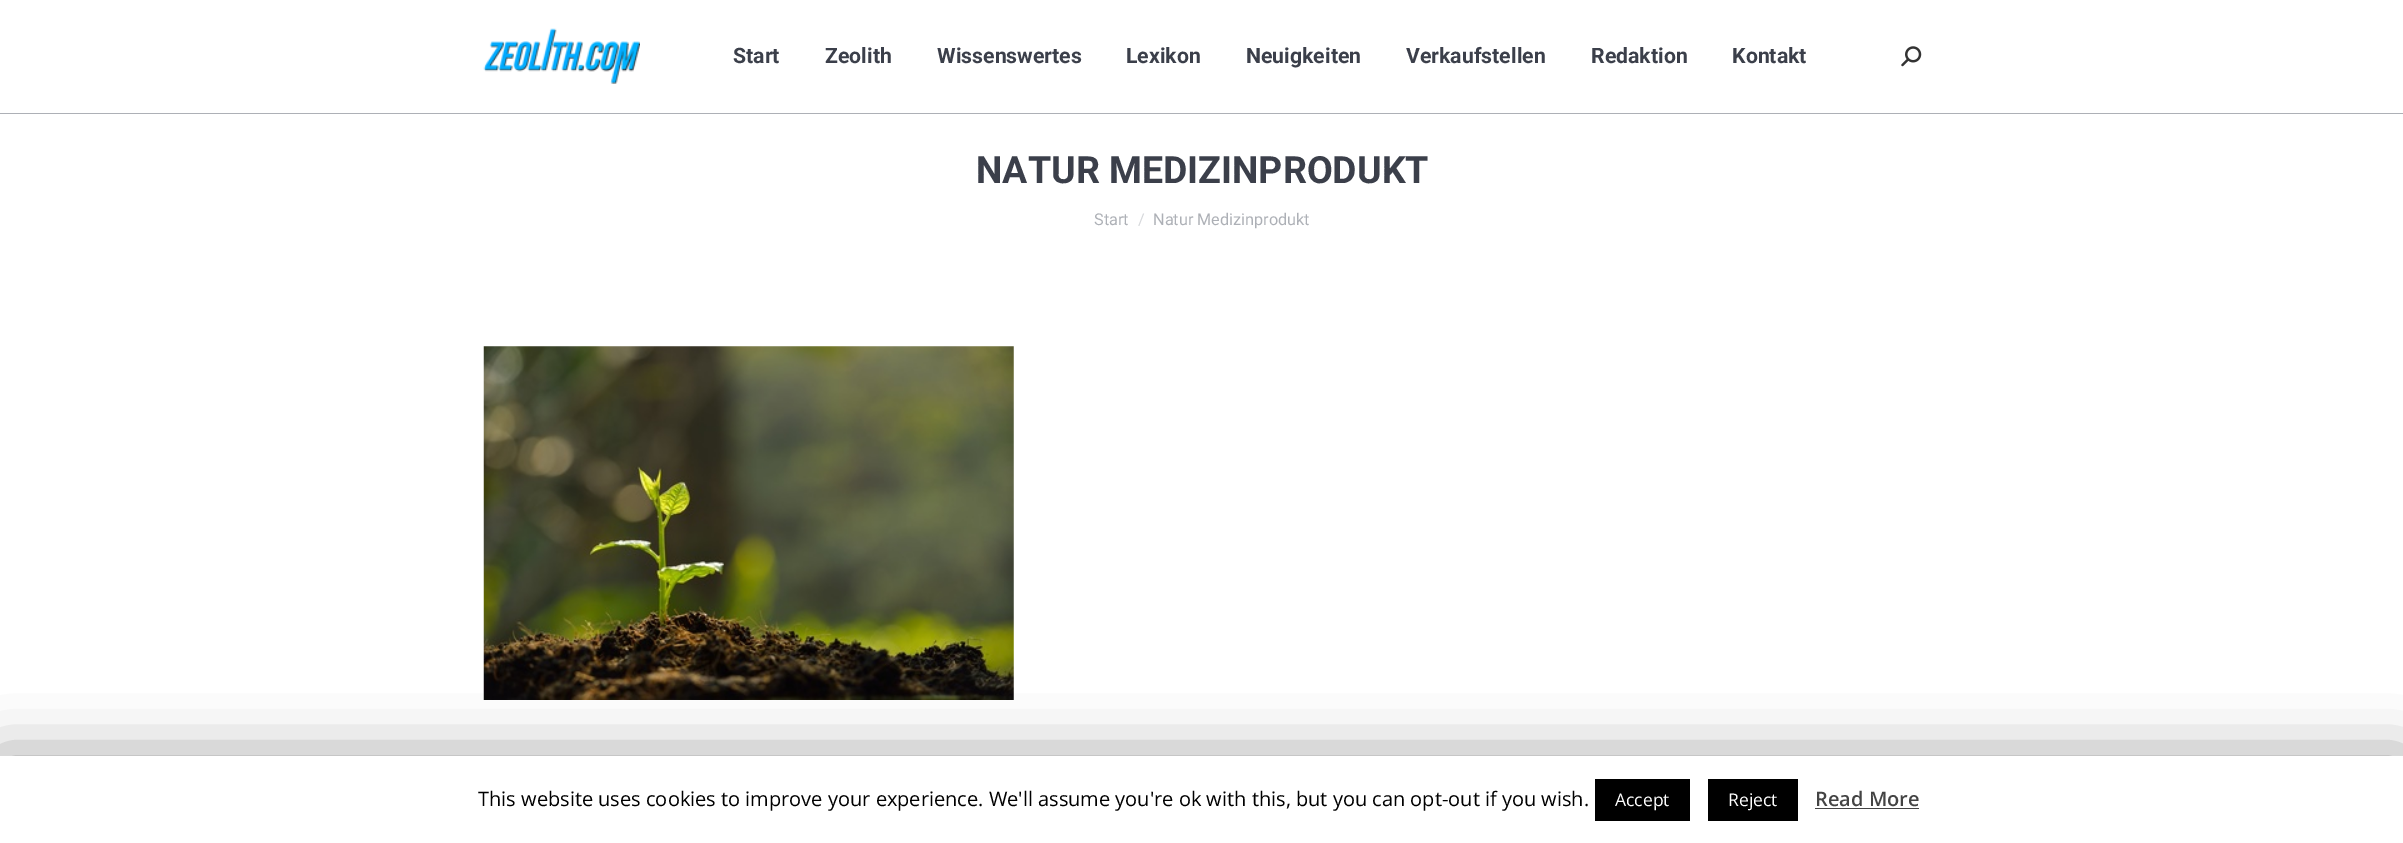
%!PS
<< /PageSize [2403 843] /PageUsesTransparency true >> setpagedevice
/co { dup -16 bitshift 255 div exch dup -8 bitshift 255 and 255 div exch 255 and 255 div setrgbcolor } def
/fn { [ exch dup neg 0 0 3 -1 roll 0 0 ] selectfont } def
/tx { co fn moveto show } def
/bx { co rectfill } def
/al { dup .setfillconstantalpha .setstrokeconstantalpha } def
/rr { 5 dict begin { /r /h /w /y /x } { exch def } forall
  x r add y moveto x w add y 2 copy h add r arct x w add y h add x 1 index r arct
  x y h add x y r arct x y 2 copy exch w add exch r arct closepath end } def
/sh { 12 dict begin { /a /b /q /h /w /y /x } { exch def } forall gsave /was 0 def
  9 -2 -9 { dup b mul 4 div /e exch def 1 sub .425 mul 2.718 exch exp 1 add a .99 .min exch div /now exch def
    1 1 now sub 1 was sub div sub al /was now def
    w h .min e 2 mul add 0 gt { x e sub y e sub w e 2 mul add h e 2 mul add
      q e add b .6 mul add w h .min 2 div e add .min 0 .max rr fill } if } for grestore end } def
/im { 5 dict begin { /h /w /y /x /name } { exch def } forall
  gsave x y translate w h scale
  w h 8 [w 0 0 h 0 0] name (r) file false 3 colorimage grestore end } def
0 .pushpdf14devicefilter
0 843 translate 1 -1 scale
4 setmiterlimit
0 0 2403 843 16#FFFFFF bx
0 113 2403 1 16#ADB0B6 bx
(media/1.raw) 483 28 157 56 im
(media/2.raw) 1901 46 21 21 im
(media/3.raw) 483 346 531 354 im
16#000000 co
0 763 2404 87 0 31 .5 sh
0 756 2403 87 16#FFFFFF bx
1595 779 95 42 16#000000 bx
1708 779 90 42 16#000000 bx
1815 808 104 1 16#444444 bx
(Start) 733 63 /Roboto-Bold 21.25 16#3B3F4A tx
(Zeolith) 825 63 /Roboto-Bold 21.25 16#3B3F4A tx
(Wissenswertes) 937 63 /Roboto-Bold 21.25 16#3B3F4A tx
(Lexikon) 1126 63 /Roboto-Bold 21.25 16#3B3F4A tx
(Neuigkeiten) 1246 63 /Roboto-Bold 21.25 16#3B3F4A tx
(Verkaufstellen) 1406 63 /Roboto-Bold 21.25 16#3B3F4A tx
(Redaktion) 1591 63 /Roboto-Bold 21.25 16#3B3F4A tx
(Kontakt) 1732 63 /Roboto-Bold 21.25 16#3B3F4A tx
(NATUR MEDIZINPRODUKT) 976 183 /Roboto-Bold 37.5 16#3B3F4A tx
(Start) 1094 225 /Roboto-Regular 16.25 16#ADB0B6 tx
(/) 1138 225 /Roboto-Regular 16.25 16#D6D8DB tx
(Natur Medizinprodukt) 1153 225 /Roboto-Regular 16.25 16#ADB0B6 tx
(This website uses cookies to improve your experience. We'll assume you're ok with this, but you can opt-out if you wish.) 478 806 /OpenSans-Regular 20 16#000000 tx
(Accept) 1615 806 /OpenSans-Regular 17.5 16#FFFFFF tx
(Reject) 1728 806 /OpenSans-Regular 17.5 16#FFFFFF tx
(Read More) 1815 806 /OpenSans-SemiBold 20 16#444444 tx
.poppdf14devicefilter showpage
